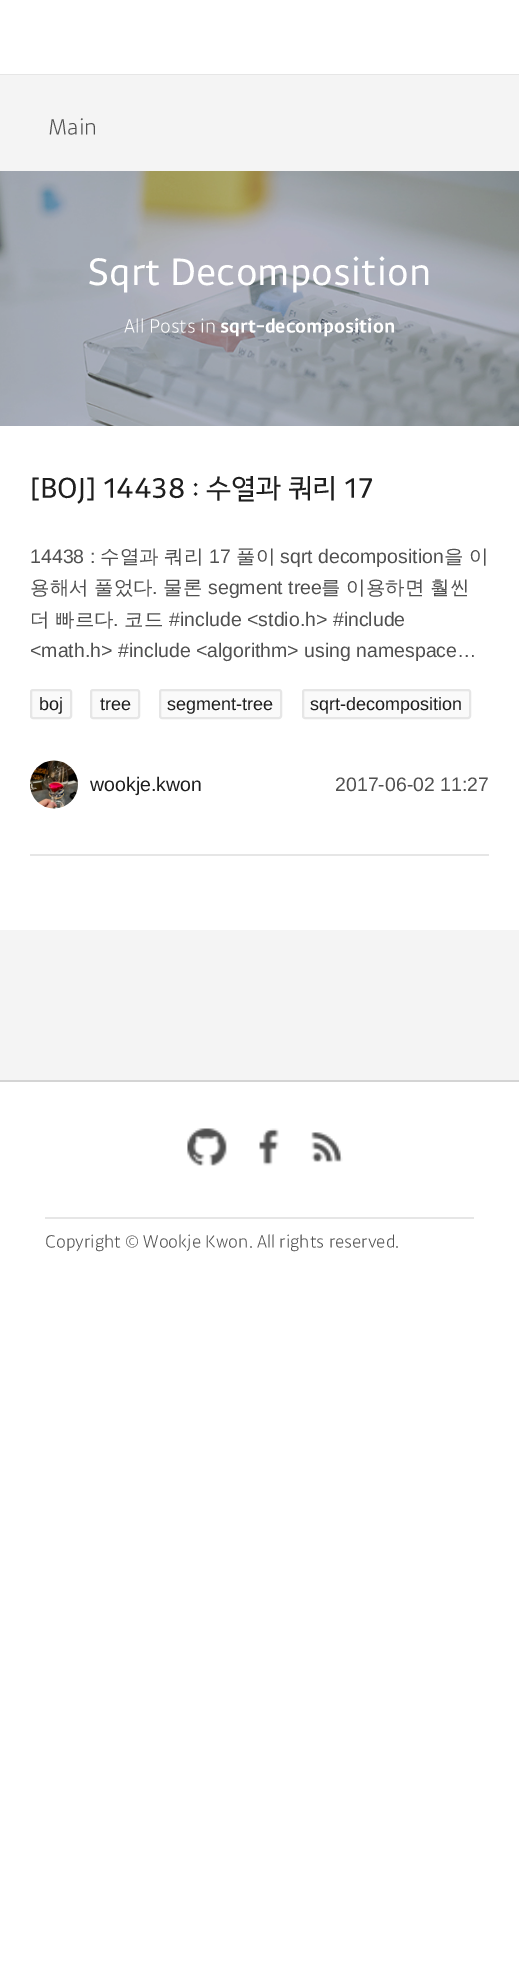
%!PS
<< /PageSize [519 1969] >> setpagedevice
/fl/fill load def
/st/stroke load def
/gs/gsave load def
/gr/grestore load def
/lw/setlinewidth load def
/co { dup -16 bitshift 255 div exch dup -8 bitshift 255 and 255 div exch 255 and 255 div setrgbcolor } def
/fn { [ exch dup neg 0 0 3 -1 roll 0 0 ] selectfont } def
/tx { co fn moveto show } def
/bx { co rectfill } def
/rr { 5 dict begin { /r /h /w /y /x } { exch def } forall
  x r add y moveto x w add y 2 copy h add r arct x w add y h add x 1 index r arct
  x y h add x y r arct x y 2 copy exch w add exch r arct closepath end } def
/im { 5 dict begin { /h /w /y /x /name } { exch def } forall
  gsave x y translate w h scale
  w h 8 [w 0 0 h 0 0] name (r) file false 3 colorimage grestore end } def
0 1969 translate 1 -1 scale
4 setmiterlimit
0 0 519 1969 16#FFFFFF bx
0 74 519 1 16#E6E6E6 bx
0 75 519 1005 16#F4F4F4 bx
(media/1.raw) 0 171 519 255 im
0 426 519 504 16#FFFFFF bx
30 854 459 2 16#E6E6E6 bx
16#FAFAFA co
31 690 40 28 2 rr gs fl gr
16#E6E6E6 co
2 lw
st
16#FAFAFA co
91 690 48 28 2 rr gs fl gr
16#E6E6E6 co
st
16#FAFAFA co
160 690 121 28 2 rr gs fl gr
16#E6E6E6 co
st
16#FAFAFA co
303 690 167 28 2 rr gs fl gr
16#E6E6E6 co
st
(media/2.raw) 30 760 48 49 im
0 1080 519 2 16#D4D4D4 bx
45 1217 429 2 16#E6E6E6 bx
(media/3.raw) 187 1128 40 38 im
(media/4.raw) 259 1128 20 38 im
(media/5.raw) 311 1132 32 31 im
(Main) 48 134 /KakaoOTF-Light 21 16#505050 tx
(Sqrt Decomposition) 87 284 /KakaoOTF-Regular 36 16#FFFFFF tx
(All Posts in) 124 332 /KakaoOTF-Light 18 16#FFFFFF tx
(sqrt-decomposition) 220 332 /KakaoOTF-Bold 18 16#FFFFFF tx
([BOJ] 14438 : 수열과 쿼리 17) 30 497 /KakaoOTF-Regular 27 16#1E1E1E tx
(14438 :) 30 563 /LiberationSans-Regular 19.5 16#505050 tx
(수열과) 100 563 /WenQuanYiZenHei-Medium 19.5 16#505050 tx
(쿼리) 164 563 /WenQuanYiZenHei-Medium 19.5 16#505050 tx
(17) 209 563 /LiberationSans-Regular 19.5 16#505050 tx
(풀이) 236 563 /WenQuanYiZenHei-Medium 19.5 16#505050 tx
(sqrt decomposition) 280 563 /LiberationSans-Regular 19.5 16#505050 tx
(을) 444 563 /WenQuanYiZenHei-Medium 19.5 16#505050 tx
(이) 469 563 /WenQuanYiZenHei-Medium 19.5 16#505050 tx
(용해서) 30 594 /WenQuanYiZenHei-Medium 19.5 16#505050 tx
(풀었다) 94 594 /WenQuanYiZenHei-Medium 19.5 16#505050 tx
(.) 152 594 /LiberationSans-Regular 19.5 16#505050 tx
(물론) 163 594 /WenQuanYiZenHei-Medium 19.5 16#505050 tx
(segment tree) 208 594 /LiberationSans-Regular 19.5 16#505050 tx
(를) 321 594 /WenQuanYiZenHei-Medium 19.5 16#505050 tx
(이용하면) 346 594 /WenQuanYiZenHei-Medium 19.5 16#505050 tx
(훨씬) 430 594 /WenQuanYiZenHei-Medium 19.5 16#505050 tx
(더) 30 626 /WenQuanYiZenHei-Medium 19.5 16#505050 tx
(빠르다) 55 626 /WenQuanYiZenHei-Medium 19.5 16#505050 tx
(.) 113 626 /LiberationSans-Regular 19.5 16#505050 tx
(코드) 124 626 /WenQuanYiZenHei-Medium 19.5 16#505050 tx
(#include <stdio.h> #include) 169 626 /LiberationSans-Regular 19.5 16#505050 tx
(<math.h> #include <algorithm> using namespace…) 30 657 /LiberationSans-Regular 19.5 16#505050 tx
(boj) 39 710 /LiberationSans-Regular 18 16#1E1E1E tx
(tree) 100 710 /LiberationSans-Regular 18 16#1E1E1E tx
(segment-tree) 167 710 /LiberationSans-Regular 18 16#1E1E1E tx
(sqrt-decomposition) 310 710 /LiberationSans-Regular 18 16#1E1E1E tx
(wookje.kwon) 90 791 /LiberationSans-Regular 19.5 16#1E1E1E tx
(2017-06-02 11:27) 335 791 /LiberationSans-Regular 19.5 16#505050 tx
(Copyright © Wookje Kwon. All rights reserved.) 45 1247 /KakaoOTF-Light 16.5 16#505050 tx
showpage
